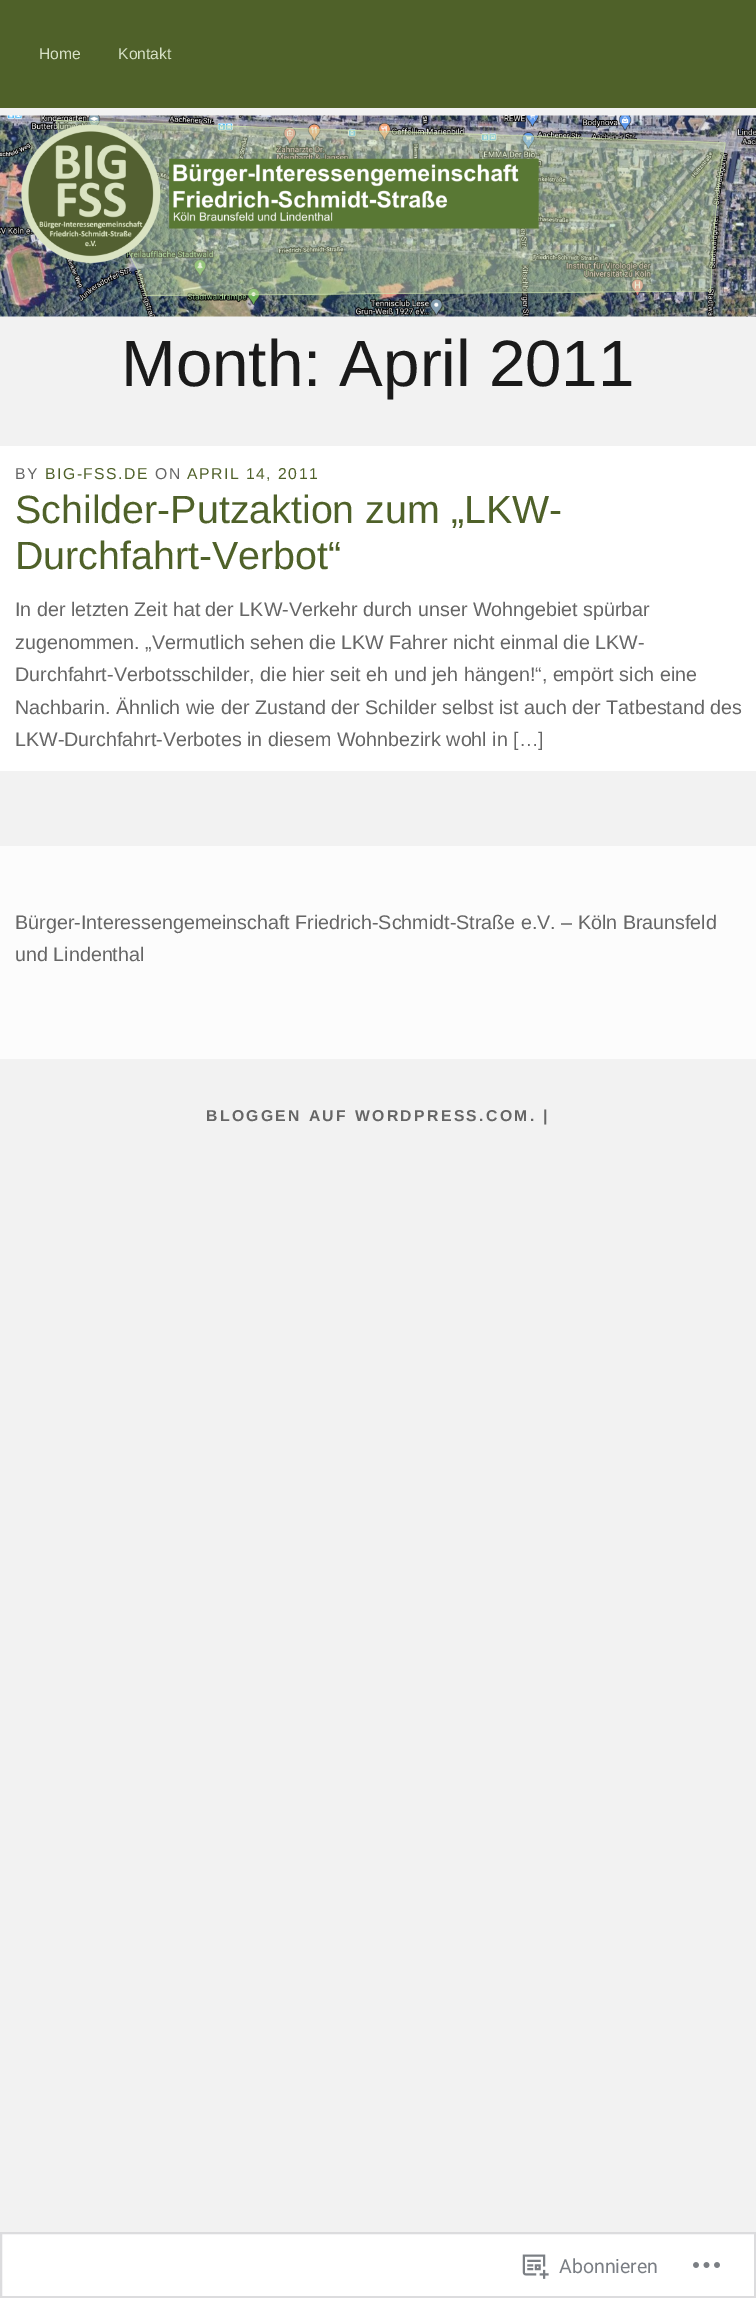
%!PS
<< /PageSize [756 2298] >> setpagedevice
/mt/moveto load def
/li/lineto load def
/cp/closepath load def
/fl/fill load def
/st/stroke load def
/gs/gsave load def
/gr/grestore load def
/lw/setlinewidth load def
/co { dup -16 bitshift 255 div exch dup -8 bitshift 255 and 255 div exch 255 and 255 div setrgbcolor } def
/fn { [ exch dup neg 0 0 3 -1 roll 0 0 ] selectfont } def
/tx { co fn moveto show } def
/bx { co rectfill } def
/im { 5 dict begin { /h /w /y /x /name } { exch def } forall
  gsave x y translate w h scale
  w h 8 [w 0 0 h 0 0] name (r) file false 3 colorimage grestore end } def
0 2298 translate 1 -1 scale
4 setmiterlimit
0 0 756 2298 16#F2F2F2 bx
0 0 756 108 16#4F6129 bx
(media/1.raw) 0 115 756 202 im
0 446 756 325 16#FFFFFF bx
0 846 756 213 16#FCFCFC bx
16#FFFFFF co
1 2233 mt 755 2233 li 755 2297 li 1 2297 li cp gs fl gr
16#DCDCDE co
2 lw
st
(media/2.raw) 522 2254 27 25 im
(media/3.raw) 693 2262 27 6 im
(Home) 39 59 /LiberationSans-Regular 15.75 16#D7E1C6 tx
(Kontakt) 118 59 /LiberationSans-Regular 15.75 16#D7E1C6 tx
(Month: April 2011) 121 386 /LiberationSans-Regular 65.5 16#1A1A1A tx
/LiberationSans-Regular 15.75 fn
16#666666 co
15 479 mt 1.5 0 (BY) ashow
16#4F6129 co
45 479 mt 1.5 0 (BIG-FSS.DE) ashow
16#666666 co
155 479 mt 1.5 0 (ON) ashow
16#4F6129 co
187 479 mt 1.5 0 (APRIL 14, 2011) ashow
(Schilder-Putzaktion zum „LKW-) 15 523 /LiberationSans-Regular 39.4 16#4F6129 tx
(Durchfahrt-Verbot“) 15 569 /LiberationSans-Regular 39.4 16#4F6129 tx
(In der letzten Zeit hat der LKW-Verkehr durch unser Wohngebiet spürbar) 15 616 /LiberationSans-Regular 19.7 16#666666 tx
(zugenommen. „Vermutlich sehen die LKW Fahrer nicht einmal die LKW-) 15 649 /LiberationSans-Regular 19.7 16#666666 tx
(Durchfahrt-Verbotsschilder, die hier seit eh und jeh hängen!“, empört sich eine) 15 681 /LiberationSans-Regular 19.7 16#666666 tx
(Nachbarin. Ähnlich wie der Zustand der Schilder selbst ist auch der Tatbestand des) 15 714 /LiberationSans-Regular 19.7 16#666666 tx
(LKW-Durchfahrt-Verbotes in diesem Wohnbezirk wohl in […]) 15 746 /LiberationSans-Regular 19.7 16#666666 tx
(Bürger-Interessengemeinschaft Friedrich-Schmidt-Straße e.V. – Köln Braunsfeld) 15 929 /LiberationSans-Regular 19.7 16#666666 tx
(und Lindenthal) 15 961 /LiberationSans-Regular 19.7 16#666666 tx
/LiberationSans-Bold 15.75 fn
206 1121 mt 2.35 0 (BLOGGEN AUF WORDPRESS.COM. |) ashow
(Abonnieren) 559 2273 /Roboto-Regular 19.5 16#7A7E84 tx
showpage
